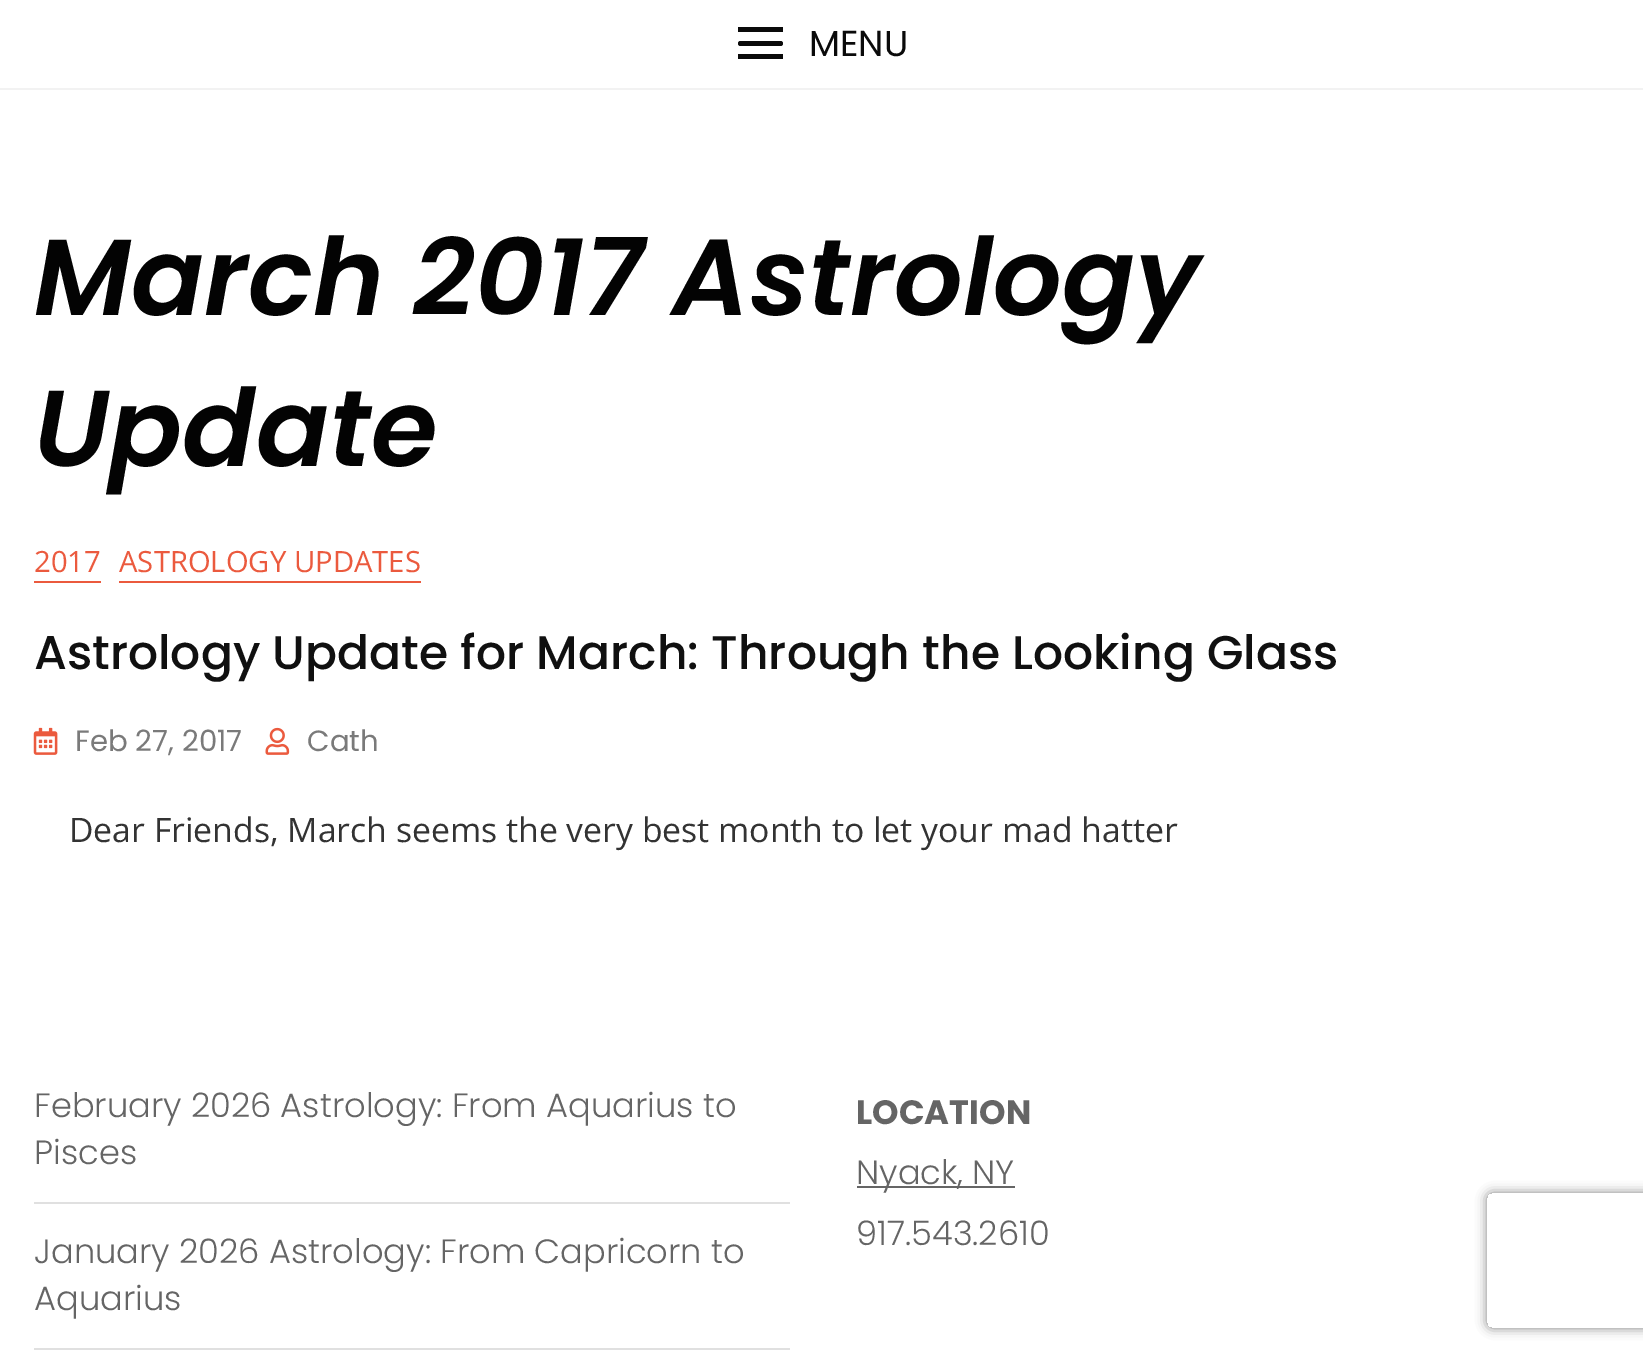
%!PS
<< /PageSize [1643 1358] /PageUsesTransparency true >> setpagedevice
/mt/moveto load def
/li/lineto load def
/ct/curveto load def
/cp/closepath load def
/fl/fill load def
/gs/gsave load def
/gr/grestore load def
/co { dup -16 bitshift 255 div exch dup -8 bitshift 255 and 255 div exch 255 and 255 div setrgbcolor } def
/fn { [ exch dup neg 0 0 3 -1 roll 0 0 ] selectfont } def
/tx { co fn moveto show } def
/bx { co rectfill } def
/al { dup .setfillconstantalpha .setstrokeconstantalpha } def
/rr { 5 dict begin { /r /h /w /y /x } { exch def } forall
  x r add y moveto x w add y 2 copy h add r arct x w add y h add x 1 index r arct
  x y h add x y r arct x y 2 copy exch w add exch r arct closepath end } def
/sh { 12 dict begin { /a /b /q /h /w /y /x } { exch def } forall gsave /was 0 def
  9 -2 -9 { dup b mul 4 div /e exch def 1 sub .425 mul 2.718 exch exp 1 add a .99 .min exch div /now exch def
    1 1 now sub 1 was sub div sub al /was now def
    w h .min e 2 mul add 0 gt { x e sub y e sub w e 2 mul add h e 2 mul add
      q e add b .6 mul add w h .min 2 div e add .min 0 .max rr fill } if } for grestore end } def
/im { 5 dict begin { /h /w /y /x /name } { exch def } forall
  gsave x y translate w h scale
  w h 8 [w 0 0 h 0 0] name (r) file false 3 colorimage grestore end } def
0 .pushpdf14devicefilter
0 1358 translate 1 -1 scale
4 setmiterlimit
0 0 1643 1358 16#FFFFFF bx
16#0A0A0A co
738 41 45 5 2.5 rr fl
738 27 45 5 16#0A0A0A bx
738 54 45 5 16#0A0A0A bx
0 88 1643 2 16#F2F2F2 bx
34 581 67 2 16#EB5A3E bx
119 581 302 2 16#EB5A3E bx
(media/1.raw) 33 727 25 28 im
(media/2.raw) 265 727 25 28 im
34 1202 756 2 16#E0E0E0 bx
34 1348 756 2 16#E0E0E0 bx
857 1186 158 2 16#656565 bx
gs
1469 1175 mt 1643 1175 li 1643 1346 li 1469 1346 li cp 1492 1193 mt 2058 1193 li 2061 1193 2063 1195 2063 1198 ct 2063 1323 li 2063 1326 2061 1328 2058 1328 ct 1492 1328 li 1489 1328 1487 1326 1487 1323 ct 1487 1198 li 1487 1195 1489 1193 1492 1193 ct cp eoclip newpath
16#808080 co
1487 1193 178 135 5 5.5 1 sh
gr
(MENU) 809 56 /Poppins-Regular 36 16#0A0A0A tx
(March 2017 Astrology) 34 315 /Poppins-SemiBoldItalic 108 16#030303 tx
(Update) 34 466 /Poppins-SemiBoldItalic 108 16#030303 tx
(2017) 34 572 /OpenSans-Regular 29.25 16#EB5A3E tx
(ASTROLOGY UPDATES) 119 572 /OpenSans-Regular 29.25 16#EB5A3E tx
(Astrology Update for March: Through the Looking Glass) 34 669 /Poppins-Medium 47.25 16#101010 tx
(Feb 27, 2017) 75 751 /Poppins-Regular 29.25 16#7A7A7A tx
(Cath) 307 751 /Poppins-Regular 29.25 16#7A7A7A tx
(Dear Friends, March seems the very best month to let your mad hatter) 69 842 /OpenSans-Regular 33.75 16#333333 tx
(February 2026 Astrology: From Aquarius to) 34 1117 /Poppins-Light 33.75 16#656565 tx
(Pisces) 34 1164 /Poppins-Light 33.75 16#656565 tx
(January 2026 Astrology: From Capricorn to) 34 1263 /Poppins-Light 33.75 16#656565 tx
(Aquarius) 34 1310 /Poppins-Light 33.75 16#656565 tx
(LOCATION) 856 1124 /Poppins-Bold 33.75 16#656565 tx
(Nyack, NY) 856 1184 /Poppins-Light 33.75 16#656565 tx
(917.543.2610) 856 1245 /Poppins-Light 33.75 16#656565 tx
.poppdf14devicefilter showpage
